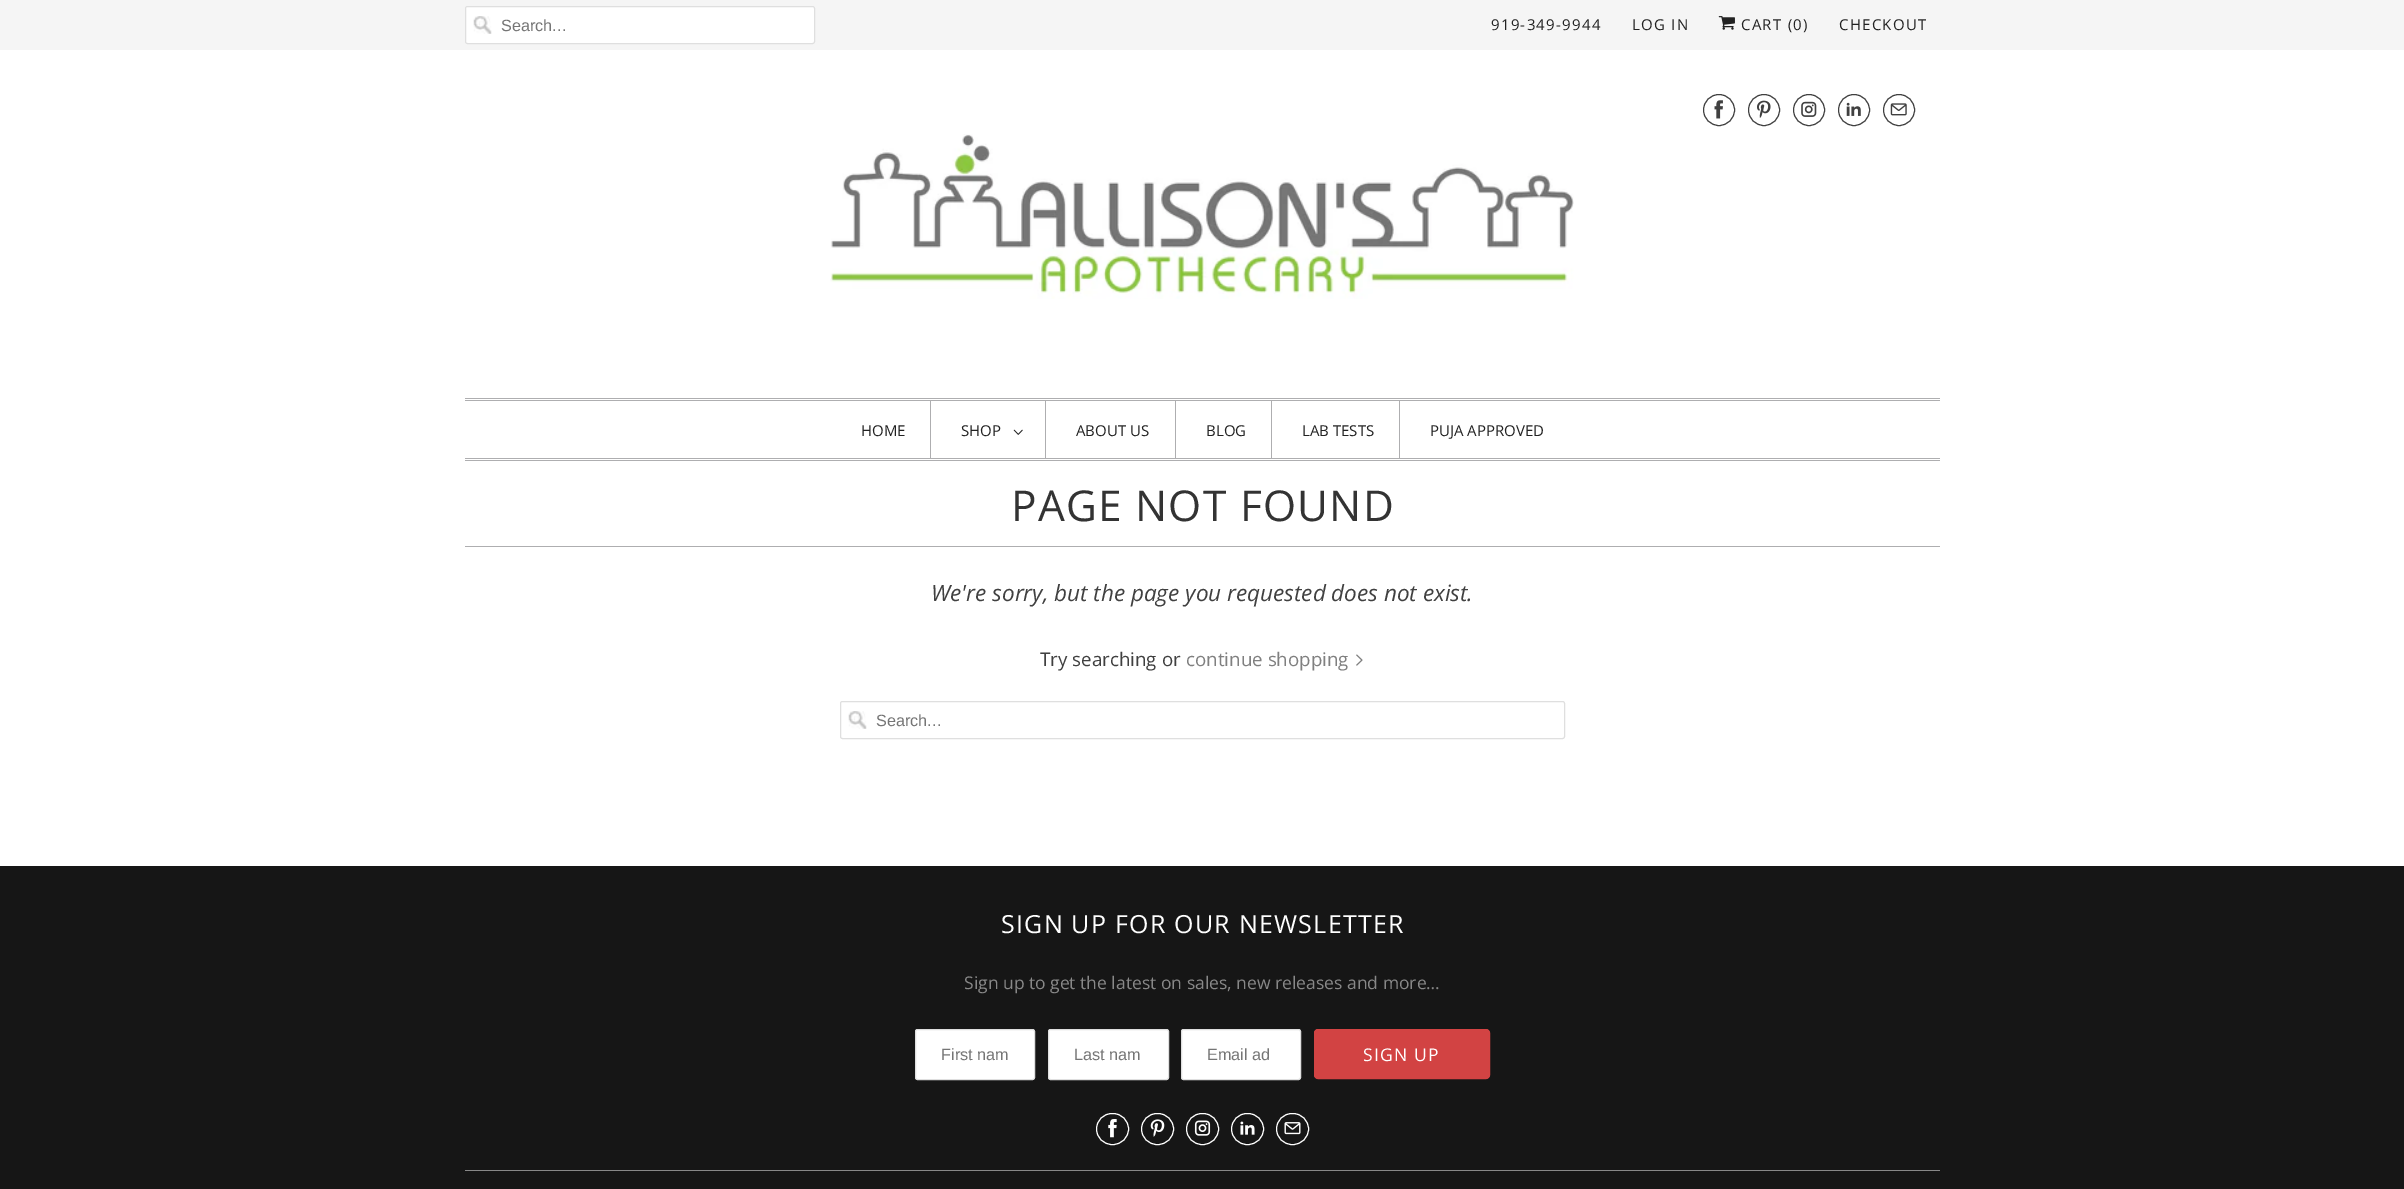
%!PS
<< /PageSize [2404 1189] >> setpagedevice
/mt/moveto load def
/fl/fill load def
/st/stroke load def
/gs/gsave load def
/gr/grestore load def
/co { dup -16 bitshift 255 div exch dup -8 bitshift 255 and 255 div exch 255 and 255 div setrgbcolor } def
/fn { [ exch dup neg 0 0 3 -1 roll 0 0 ] selectfont } def
/tx { co fn moveto show } def
/bx { co rectfill } def
/ci { newpath 0 360 arc closepath } def
/rr { 5 dict begin { /r /h /w /y /x } { exch def } forall
  x r add y moveto x w add y 2 copy h add r arct x w add y h add x 1 index r arct
  x y h add x y r arct x y 2 copy exch w add exch r arct closepath end } def
/im { 5 dict begin { /h /w /y /x /name } { exch def } forall
  gsave x y translate w h scale
  w h 8 [w 0 0 h 0 0] name (r) file false 3 colorimage grestore end } def
0 1189 translate 1 -1 scale
4 setmiterlimit
0 0 2404 1189 16#FFFFFF bx
0 0 2404 50 16#F5F5F5 bx
16#FFFFFF co
465 6 350 38 2.5 rr fl
(media/1.raw) 473 16 19 18 im
16#DFDFDF co
465.5 6.5 349 37 2 rr st
(media/2.raw) 1718 16 17 14 im
16#404040 co
1719 110 15.5 ci st
(media/3.raw) 1714 100 9 19 im
1764 110 15.5 ci st
(media/4.raw) 1757 100 14 18 im
1809 110 15.5 ci st
(media/5.raw) 1801 101 16 16 im
1854 110 15.5 ci st
(media/6.raw) 1846 102 15 14 im
1899 110 15.5 ci st
(media/7.raw) 1890 103 17 13 im
(media/8.raw) 830 134 744 165 im
465 398 1475 1 16#AEAEB0 bx
465 400 1475 1 16#AEAEB0 bx
465 458 1475 1 16#AEAEB0 bx
465 460 1475 1 16#AEAEB0 bx
930 401 1 57 16#AEAEB0 bx
1045 401 1 57 16#AEAEB0 bx
(media/9.raw) 1013 429 10 6 im
1175 401 1 57 16#AEAEB0 bx
1271 401 1 57 16#AEAEB0 bx
1399 401 1 57 16#AEAEB0 bx
465 546 1475 1 16#AEAEB0 bx
(media/10.raw) 1356 654 7 12 im
(media/11.raw) 848 711 19 18 im
16#DFDFDF co
840.5 701.5 724 37 2 rr st
0 866 2404 323 16#161616 bx
16#FFFFFF co
915.5 1029.5 119 50 2 rr gs fl gr
16#DFDFDF co
st
16#FFFFFF co
1048.5 1029.5 120 50 2 rr gs fl gr
16#DFDFDF co
st
16#FFFFFF co
1181.5 1029.5 119 50 2 rr gs fl gr
16#DFDFDF co
st
16#D24343 co
1314.5 1029.5 175 49 3.5 rr gs fl gr
st
16#FFFFFF co
1096.5 1113.5 32 31 15.5 rr st
(media/12.raw) 1108 1119 9 19 im
1141.5 1113.5 32 31 15.5 rr st
(media/13.raw) 1150 1119 15 18 im
1186.5 1113.5 32 31 15.5 rr st
(media/14.raw) 1194 1120 17 16 im
1231.5 1113.5 32 31 15.5 rr st
(media/15.raw) 1240 1121 15 14 im
1276.5 1113.5 32 31 15.5 rr st
(media/16.raw) 1284 1122 17 13 im
465 1170 1475 1 16#888888 bx
(Search...) 501 31 /LiberationSans-Regular 16.25 16#757575 tx
/OpenSans-Regular 15 fn
16#222222 co
1491 30 mt 1.25 0 (919-349-9944) ashow
1632 30 mt 1.25 0 (LOG IN) ashow
1741 30 mt 1.25 0 (CART \(0\)) ashow
1839 30 mt 1.25 0 (CHECKOUT) ashow
(HOME) 861 436 /OpenSans-Regular 15 16#222222 tx
(SHOP) 961 436 /OpenSans-Regular 15 16#222222 tx
(ABOUT US) 1076 436 /OpenSans-Regular 15 16#222222 tx
(BLOG) 1206 436 /OpenSans-Regular 15 16#222222 tx
(LAB TESTS) 1302 436 /OpenSans-Regular 15 16#222222 tx
(PUJA APPROVED) 1430 436 /OpenSans-Regular 15 16#222222 tx
/OpenSans-Regular 42.5 fn
16#333333 co
1011 521 mt 1.25 0 (PAGE NOT FOUND) ashow
(We're sorry, but the page you requested does not exist.) 931 601 /OpenSans-Italic 22.5 16#404040 tx
(Try searching or) 1040 666 /OpenSans-Regular 18.75 16#404040 tx
(continue shopping) 1186 666 /OpenSans-Regular 18.75 16#808080 tx
(Search...) 876 726 /LiberationSans-Regular 16.25 16#757575 tx
/OpenSans-Regular 25 fn
16#FFFFFF co
1001 933 mt 1.25 0 (SIGN UP FOR OUR NEWSLETTER) ashow
(Sign up to get the latest on sales, new releases and more…) 964 989 /OpenSans-Regular 17.5 16#888888 tx
(First nam) 941 1060 /LiberationSans-Regular 16.25 16#757575 tx
(Last nam) 1074 1060 /LiberationSans-Regular 16.25 16#757575 tx
(Email ad) 1207 1060 /LiberationSans-Regular 16.25 16#757575 tx
/OpenSans-Regular 17.5 fn
16#FFFFFF co
1363 1061 mt 1.25 0 (SIGN UP) ashow
showpage
